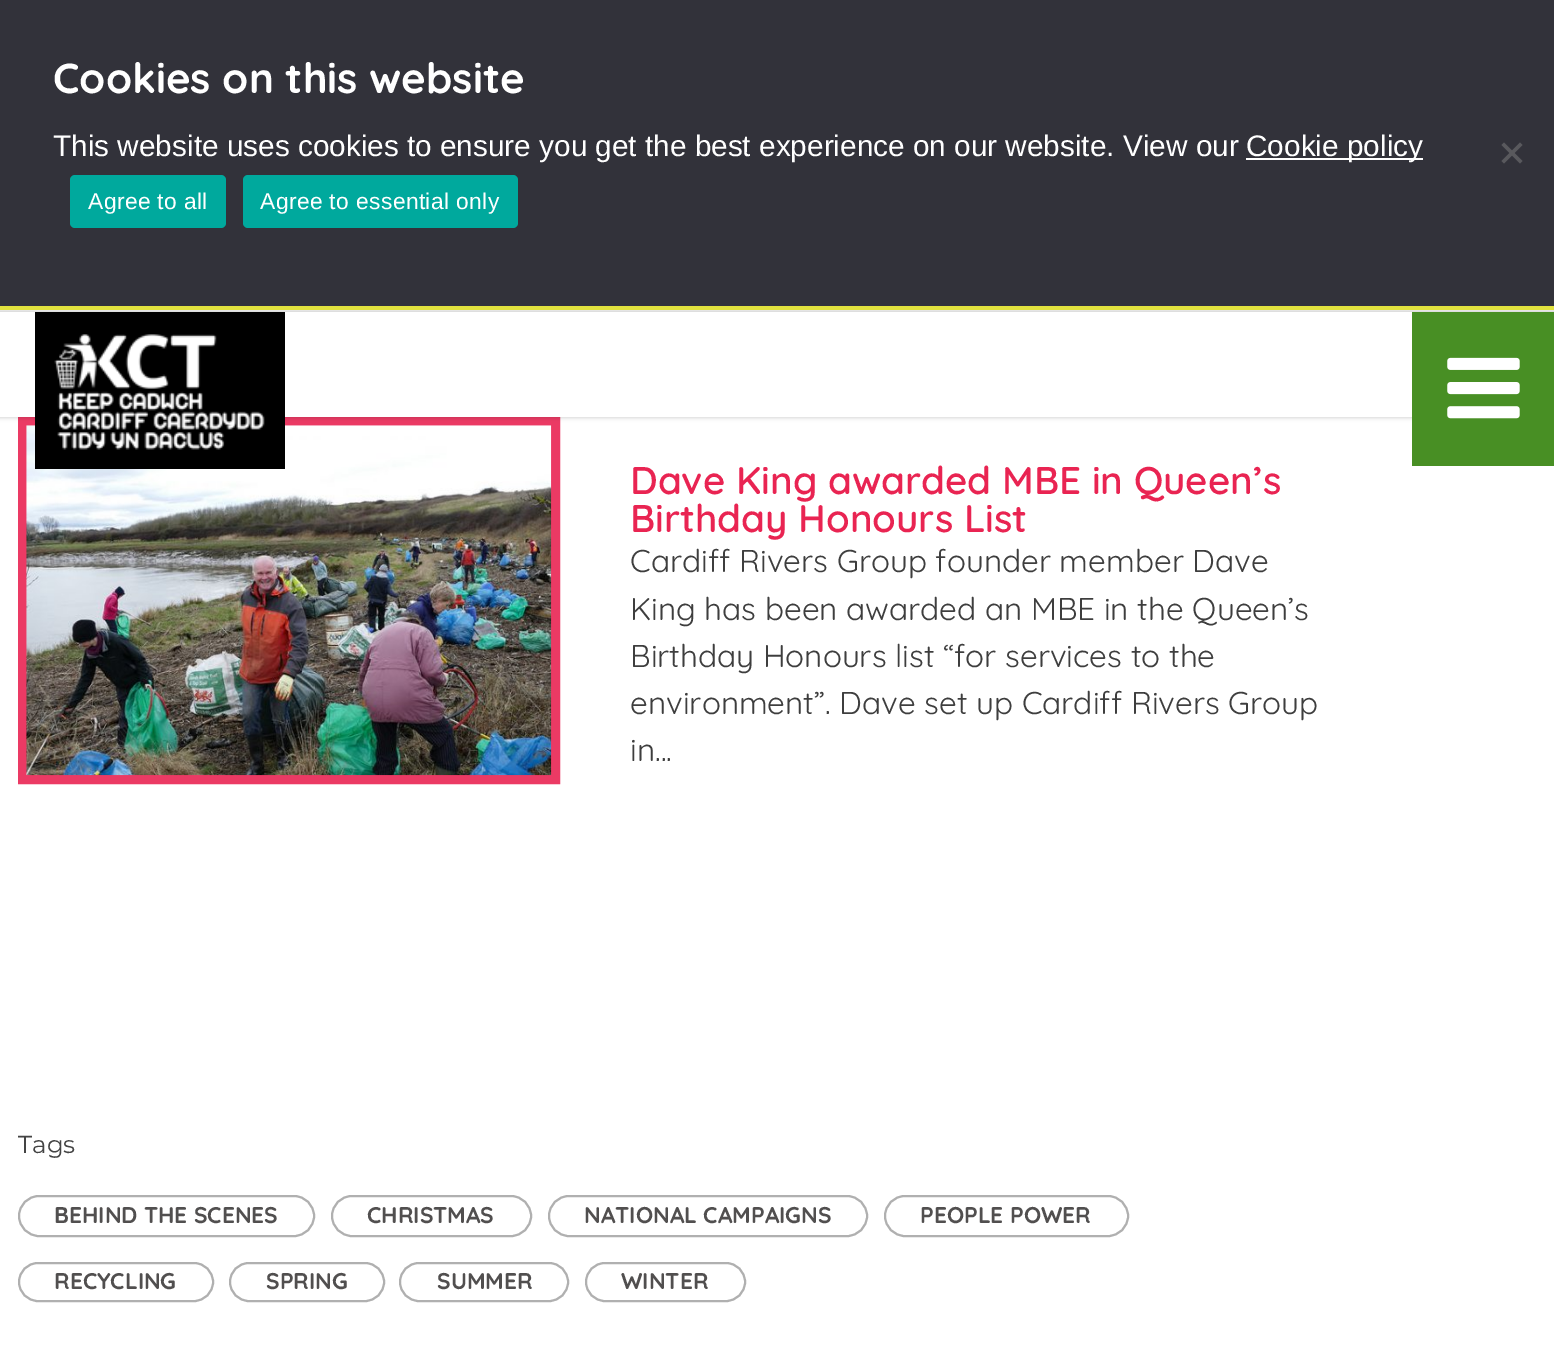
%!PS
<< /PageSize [1554 1367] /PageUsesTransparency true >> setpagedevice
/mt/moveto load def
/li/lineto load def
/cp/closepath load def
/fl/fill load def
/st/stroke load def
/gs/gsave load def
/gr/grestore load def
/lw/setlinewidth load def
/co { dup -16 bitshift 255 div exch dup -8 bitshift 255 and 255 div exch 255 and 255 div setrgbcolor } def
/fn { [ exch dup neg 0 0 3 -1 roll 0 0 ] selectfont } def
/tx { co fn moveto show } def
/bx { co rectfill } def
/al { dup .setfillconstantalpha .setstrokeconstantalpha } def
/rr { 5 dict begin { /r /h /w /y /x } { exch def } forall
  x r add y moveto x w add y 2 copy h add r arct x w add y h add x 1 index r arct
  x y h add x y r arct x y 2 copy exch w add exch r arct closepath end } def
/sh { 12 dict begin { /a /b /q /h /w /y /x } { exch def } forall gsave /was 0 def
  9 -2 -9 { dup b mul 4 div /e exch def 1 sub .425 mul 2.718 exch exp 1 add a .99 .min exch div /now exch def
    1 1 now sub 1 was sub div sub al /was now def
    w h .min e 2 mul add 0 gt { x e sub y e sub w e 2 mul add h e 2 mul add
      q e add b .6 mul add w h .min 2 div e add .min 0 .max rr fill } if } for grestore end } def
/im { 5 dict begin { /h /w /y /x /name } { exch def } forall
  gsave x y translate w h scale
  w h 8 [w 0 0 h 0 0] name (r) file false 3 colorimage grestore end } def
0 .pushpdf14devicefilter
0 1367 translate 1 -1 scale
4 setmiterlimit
0 0 1554 1367 16#FFFFFF bx
16#EB3A64 co
9 lw
22.5 421.5 533 358 rectstroke
gs
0 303 mt 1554 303 li 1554 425 li 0 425 li cp 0 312 mt 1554 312 li 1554 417 li 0 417 li cp eoclip newpath
16#000000 co
-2 310 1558 108 0 2 .16 sh
gr
0 0 1554 306 16#32323A bx
0 306 1554 4 16#E1E23E bx
1246 158 177 2 16#FFFFFF bx
16#59595D co
1520 142.5 mt 1522.5 145 li 1504 163.5 li 1501.5 161 li cp fl
1501.5 145 mt 1504 142.5 li 1522.5 161 li 1520 163.5 li cp fl
16#00A99D co
70 175 156 53 5 rr fl
243 175 275 53 5 rr fl
(media/3.raw) 26 425 526 351 im
35 312 250 157 16#000000 bx
(media/1.raw) 54 334 211 116 im
1412 312 142 154 16#488F24 bx
(media/2.raw) 1447 357 73 62 im
16#B0B0B0 co
2 lw
19 1196 295 40 20 rr st
332 1196 199 40 20 rr st
549 1196 318 40 20 rr st
885 1196 243 40 20 rr st
19 1263 194 38 19 rr st
230 1263 154 38 19 rr st
400 1263 168 38 19 rr st
586 1263 159 38 19 rr st
(Cookies on this website) 53 93 /Quicksand-Bold 42 16#FFFFFF tx
(This website uses cookies to ensure you get the best experience on our website. View our) 53 156 /LiberationSans-Regular 29.75 16#FFFFFF tx
(Cookie policy) 1246 156 /LiberationSans-Regular 29.75 16#FFFFFF tx
/LiberationSans-Regular 22.75 fn
88 209 mt .4 0 (Agree to all) ashow
260 209 mt .4 0 (Agree to essential only) ashow
(Dave King awarded MBE in Queen’s) 630 494 /Quicksand-SemiBold 38.5 16#E92452 tx
(Birthday Honours List) 630 532 /Quicksand-SemiBold 38.5 16#E92452 tx
(Cardiff Rivers Group founder member Dave) 630 572 /Quicksand-Regular 31.5 16#3E3E3E tx
(King has been awarded an MBE in the Queen’s) 630 620 /Quicksand-Regular 31.5 16#3E3E3E tx
(Birthday Honours list “for services to the) 630 667 /Quicksand-Regular 31.5 16#3E3E3E tx
(environment”. Dave set up Cardiff Rivers Group) 630 714 /Quicksand-Regular 31.5 16#3E3E3E tx
(in...) 630 761 /Quicksand-Regular 31.5 16#3E3E3E tx
(Tags) 18 1153 /Montserrat-Regular 24.5 16#444444 tx
(BEHIND THE SCENES) 54 1223 /Quicksand-Bold 22.75 16#514F4F tx
(CHRISTMAS) 367 1223 /Quicksand-Bold 22.75 16#514F4F tx
(NATIONAL CAMPAIGNS) 584 1223 /Quicksand-Bold 22.75 16#514F4F tx
(PEOPLE POWER) 920 1223 /Quicksand-Bold 22.75 16#514F4F tx
(RECYCLING) 54 1289 /Quicksand-Bold 22.75 16#514F4F tx
(SPRING) 266 1289 /Quicksand-Bold 22.75 16#514F4F tx
(SUMMER) 437 1289 /Quicksand-Bold 22.75 16#514F4F tx
(WINTER) 621 1289 /Quicksand-Bold 22.75 16#514F4F tx
.poppdf14devicefilter showpage
